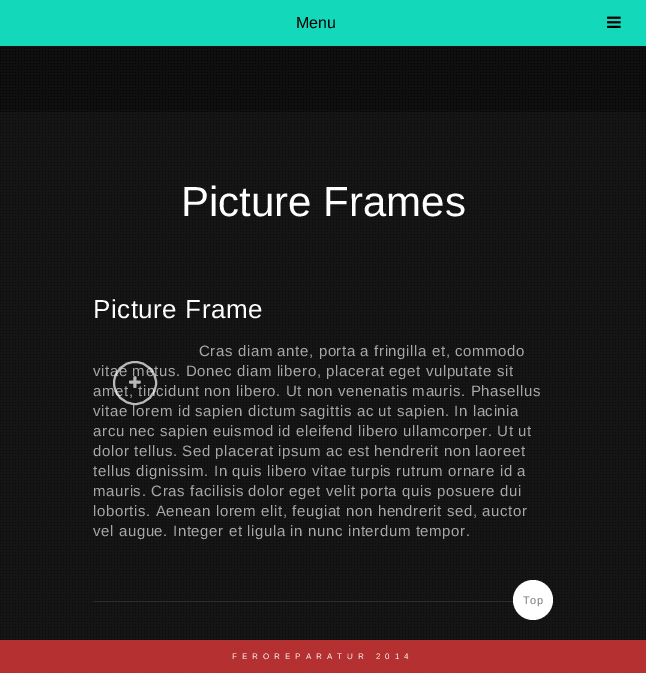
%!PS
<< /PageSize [646 673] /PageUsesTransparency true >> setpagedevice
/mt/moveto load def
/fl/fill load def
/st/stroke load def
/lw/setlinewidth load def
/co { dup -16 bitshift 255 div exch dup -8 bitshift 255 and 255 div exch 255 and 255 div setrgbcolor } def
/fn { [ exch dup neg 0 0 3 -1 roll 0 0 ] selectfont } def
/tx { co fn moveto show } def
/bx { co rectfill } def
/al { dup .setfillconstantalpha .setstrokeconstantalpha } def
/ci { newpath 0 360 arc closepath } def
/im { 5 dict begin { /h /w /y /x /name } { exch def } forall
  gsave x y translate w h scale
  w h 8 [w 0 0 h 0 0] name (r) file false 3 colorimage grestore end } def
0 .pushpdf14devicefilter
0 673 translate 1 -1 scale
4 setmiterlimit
0 0 646 673 16#0F0F0F bx
0 0 646 46 16#13D9BA bx
(media/1.raw) 607 16 14 12 im
(media/2.raw) 0 48 646 625 im
0.15 al
0 112 646 561 16#373737 bx
1 al
93 601 460 1 16#2C2C2C bx
16#FFFFFF co
533 600 20 ci fl
0.8 al
0 640 646 33 16#DD3737 bx
1 al
(Menu) 296 28 /LiberationSans-Regular 16 16#000000 tx
(Picture Frames) 181 216 /LiberationSans-Regular 42 16#FFFFFF tx
/LiberationSans-Regular 26 fn
93 318 mt .5 0 (Picture Frame) ashow
/LiberationSans-Regular 15 fn
16#A7A7A7 co
199 356 mt .6 0 (Cras diam ante, porta a fringilla et, commodo) ashow
93 376 mt .6 0 (vitae metus. Donec diam libero, placerat eget vulputate sit) ashow
93 396 mt .6 0 (amet, tincidunt non libero. Ut non venenatis mauris. Phasellus) ashow
0.7 al
16#FFFFFF co
2 lw
135 383 21 ci st
1 al
(media/3.raw) 129 376 12 12 im
16#A7A7A7 co
93 416 mt .6 0 (vitae lorem id sapien dictum sagittis ac ut sapien. In lacinia) ashow
93 436 mt .6 0 (arcu nec sapien euismod id eleifend libero ullamcorper. Ut ut) ashow
93 456 mt .6 0 (dolor tellus. Sed placerat ipsum ac est hendrerit non laoreet) ashow
93 476 mt .6 0 (tellus dignissim. In quis libero vitae turpis rutrum ornare id a) ashow
93 496 mt .6 0 (mauris. Cras facilisis dolor eget velit porta quis posuere dui) ashow
93 516 mt .6 0 (lobortis. Aenean lorem elit, feugiat non hendrerit sed, auctor) ashow
93 536 mt .6 0 (vel augue. Integer et ligula in nunc interdum tempor.) ashow
/LiberationSans-Regular 11 fn
16#777777 co
523 604 mt .6 0 (Top) ashow
/LiberationSans-Regular 8 fn
16#F9F9F9 co
232 659 mt 5 0 (FEROREPARATUR 2014) ashow
.poppdf14devicefilter showpage
